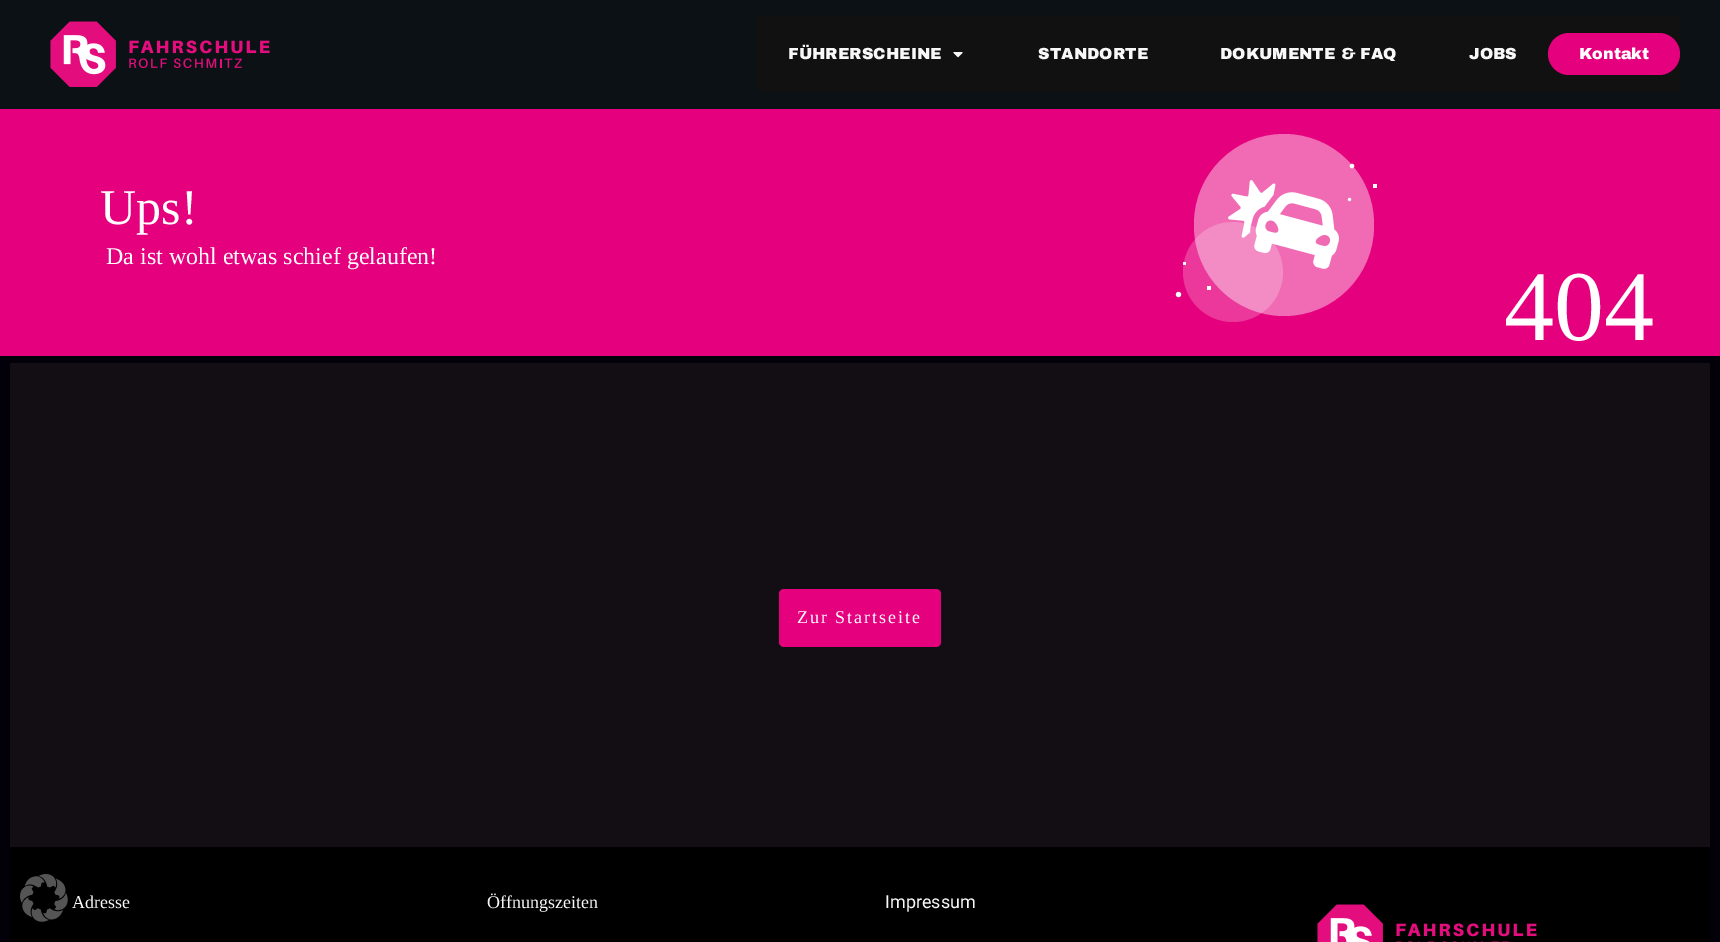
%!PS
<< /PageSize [1720 942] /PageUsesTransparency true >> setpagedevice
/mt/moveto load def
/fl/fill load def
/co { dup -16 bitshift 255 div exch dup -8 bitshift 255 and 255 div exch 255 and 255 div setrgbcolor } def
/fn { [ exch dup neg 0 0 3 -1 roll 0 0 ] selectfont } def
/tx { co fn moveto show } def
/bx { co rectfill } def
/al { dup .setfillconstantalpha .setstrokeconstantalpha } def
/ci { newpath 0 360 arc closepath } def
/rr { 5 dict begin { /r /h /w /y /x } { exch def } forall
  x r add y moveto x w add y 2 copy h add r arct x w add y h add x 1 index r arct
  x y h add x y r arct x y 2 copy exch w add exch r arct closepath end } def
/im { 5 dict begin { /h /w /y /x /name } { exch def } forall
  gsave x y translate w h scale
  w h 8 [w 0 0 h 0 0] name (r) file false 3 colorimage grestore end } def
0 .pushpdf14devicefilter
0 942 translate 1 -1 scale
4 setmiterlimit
0 0 1720 942 16#020109 bx
10 847 1700 95 16#000000 bx
(media/1.raw) 20 874 48 48 im
0 0 1720 109 16#0C1115 bx
(media/2.raw) 50 21 220 66 im
757 16 923 76 16#111111 bx
(media/3.raw) 953 52 10 6 im
16#E5007E co
1548 33 132 42 21 rr fl
0 109 1720 247 16#E5007E bx
16#F06BB4 co
1194 134 180 182 90 rr fl
0.22 al
16#FFFFFF co
1233 272 50 ci fl
1 al
(media/4.raw) 1228 180 111 89 im
(media/5.raw) 1349 163 6 6 im
1373 184 4 4 16#FFFFFF bx
(media/6.raw) 1347 197 5 5 im
1183 262 3 3 16#FFFFFF bx
1207 286 4 4 16#FFFFFF bx
(media/7.raw) 1175 291 7 7 im
10 363 1700 484 16#130E14 bx
16#E5007E co
779 589 162 58 5 rr fl
(media/8.raw) 1317 904 220 38 im
(FÜHRERSCHEINE) 788 59 /ArchivoBlack-Black 16 16#F8F8F8 tx
(STANDORTE) 1038 59 /ArchivoBlack-Black 16 16#F8F8F8 tx
(DOKUMENTE & FAQ) 1220 59 /ArchivoBlack-Black 16 16#F8F8F8 tx
(JOBS) 1469 59 /ArchivoBlack-Black 16 16#F8F8F8 tx
(Kontakt) 1579 59 /ArchivoBlack-Black 16 16#FFFFFF tx
(Ups!) 100 224 /LiberationSerif-Regular 50 16#FFFFFF tx
(Da ist wohl etwas schief gelaufen!) 106 264 /LiberationSerif-Regular 24 16#FFFFFF tx
(404) 1504 340 /LiberationSerif-Regular 100 16#FFFFFF tx
/LiberationSerif-Regular 18 fn
797 623 mt 2 0 (Zur Startseite) ashow
(Adresse) 72 908 /LiberationSerif-Regular 18 16#F8F8F8 tx
(Öffnungszeiten) 487 908 /LiberationSerif-Regular 18 16#F8F8F8 tx
(Impressum) 885 908 /Roboto-Regular 18 16#F8F8F8 tx
.poppdf14devicefilter showpage
